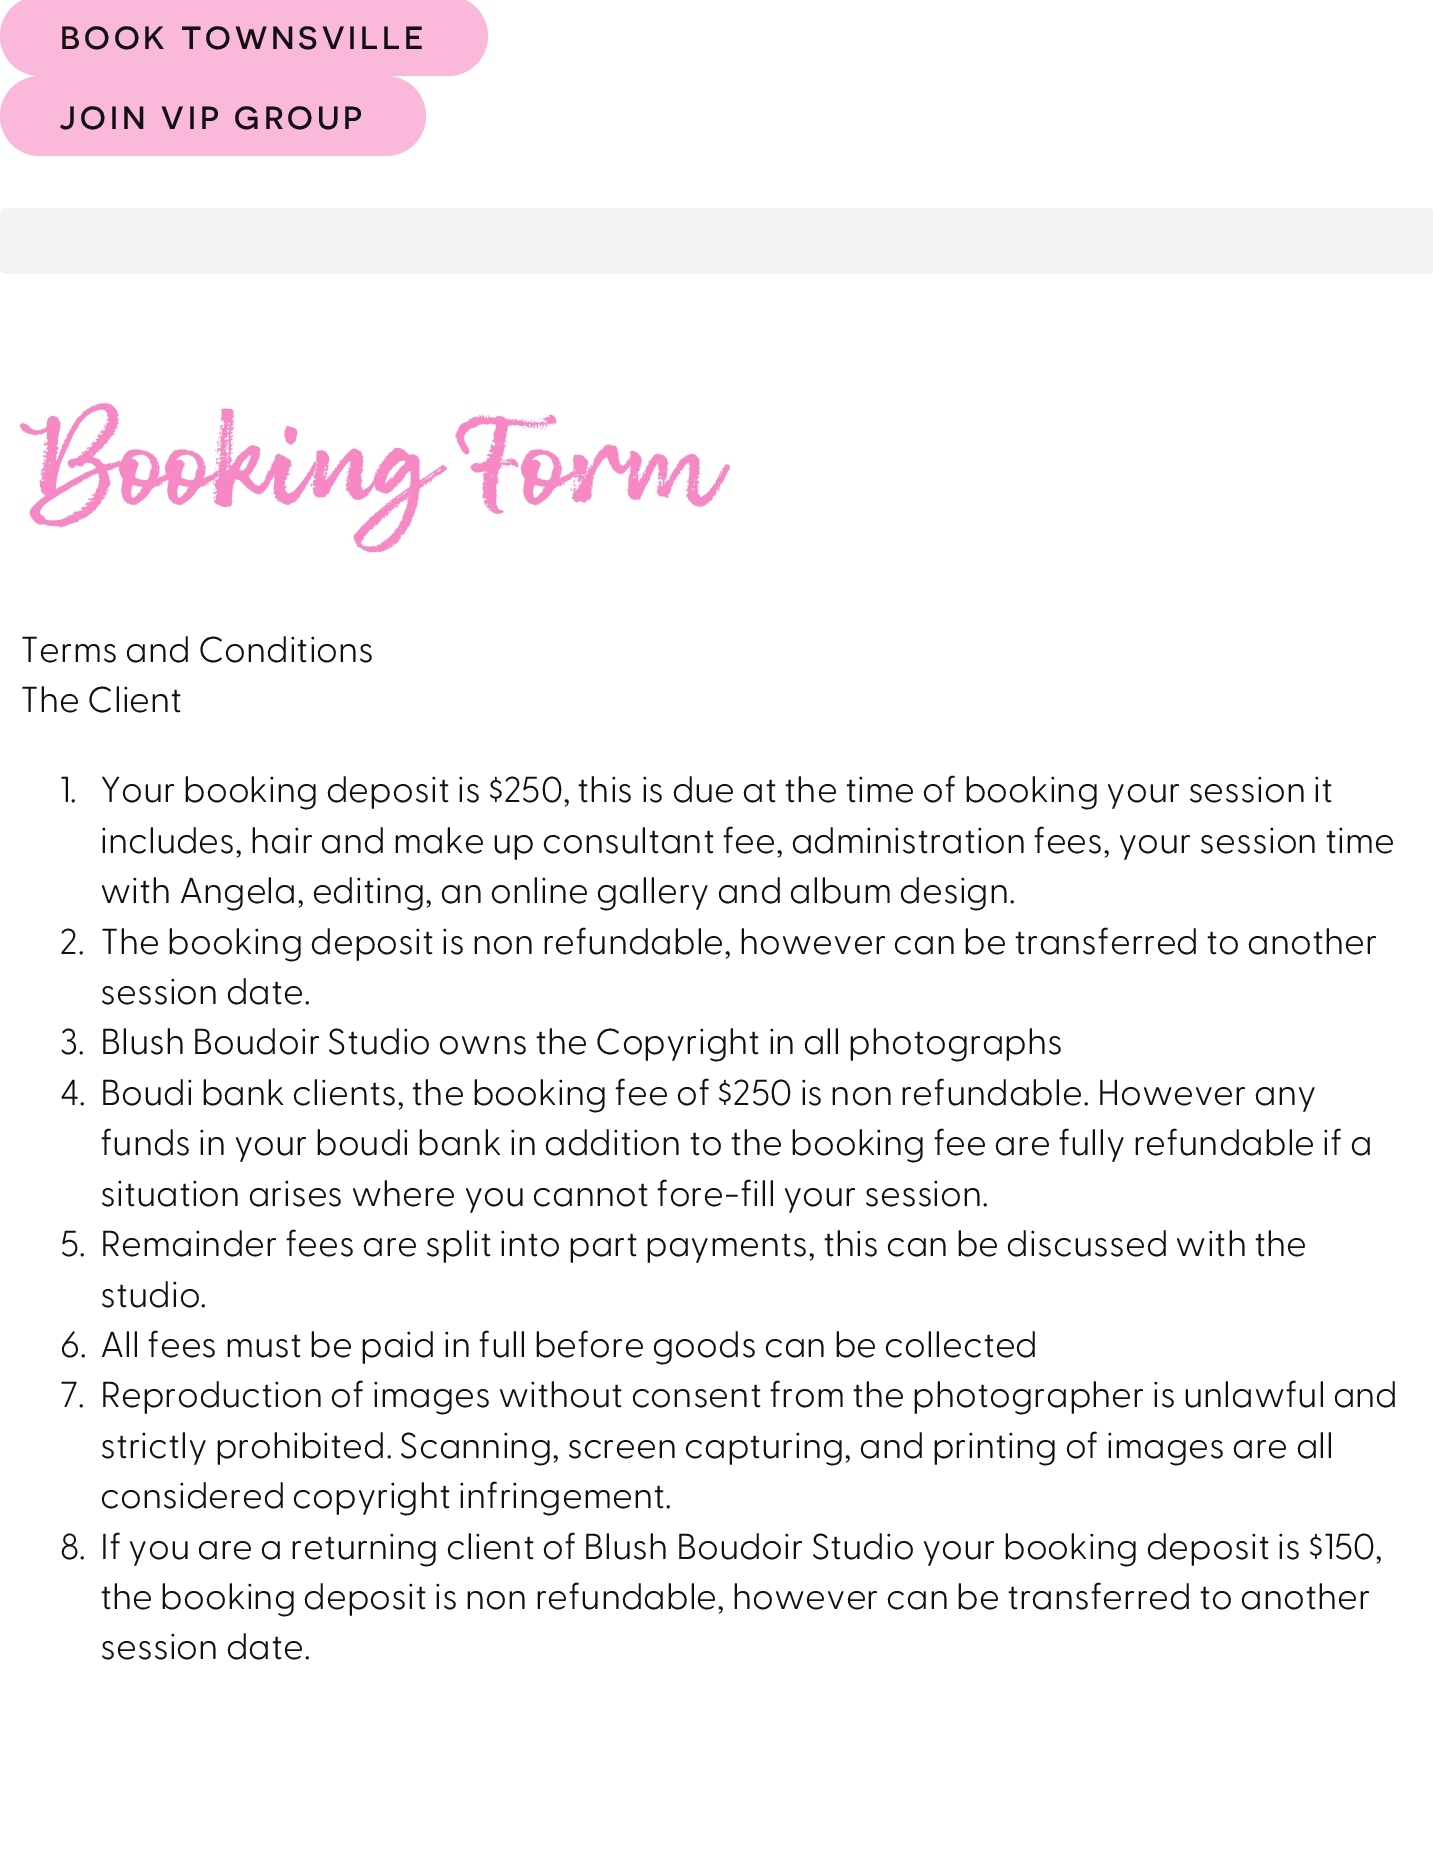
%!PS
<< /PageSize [1433 1859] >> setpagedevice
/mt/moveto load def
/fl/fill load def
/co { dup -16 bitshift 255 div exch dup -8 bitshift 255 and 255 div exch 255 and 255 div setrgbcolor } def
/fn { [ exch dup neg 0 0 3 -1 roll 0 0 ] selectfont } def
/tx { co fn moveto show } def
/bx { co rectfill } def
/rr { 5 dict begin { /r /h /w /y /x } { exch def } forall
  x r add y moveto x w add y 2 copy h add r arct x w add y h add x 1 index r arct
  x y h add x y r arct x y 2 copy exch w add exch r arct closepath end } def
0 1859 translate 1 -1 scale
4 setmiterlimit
0 0 1433 1859 16#FFFFFF bx
16#FAB8DB co
0 -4 488 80 40 rr fl
0 76 426 80 40 rr fl
16#F3F3F3 co
0 208 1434 66 6 rr fl
/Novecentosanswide-Medium 32 fn
16#111111 co
60 49 mt 4 0 (BOOK TOWNSVILLE) ashow
60 129 mt 4 0 (JOIN VIP GROUP) ashow
(Booking Form) 20 500 /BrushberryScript-Regular 100 16#F788C3 tx
(Terms and Conditions) 20 662 /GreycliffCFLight-Light 36 16#111111 tx
(The Client) 20 712 /GreycliffCFLight-Light 36 16#111111 tx
(1.) 60 802 /GreycliffCFLight-Light 36 16#111111 tx
(Your booking deposit is $250, this is due at the time of booking your session it) 100 802 /GreycliffCFLight-Light 36 16#111111 tx
(includes, hair and make up consultant fee, administration fees, your session time) 100 853 /GreycliffCFLight-Light 36 16#111111 tx
(with Angela, editing, an online gallery and album design.) 100 903 /GreycliffCFLight-Light 36 16#111111 tx
(2.) 60 954 /GreycliffCFLight-Light 36 16#111111 tx
(The booking deposit is non refundable, however can be transferred to another) 100 954 /GreycliffCFLight-Light 36 16#111111 tx
(session date.) 100 1004 /GreycliffCFLight-Light 36 16#111111 tx
(3.) 60 1054 /GreycliffCFLight-Light 36 16#111111 tx
(Blush Boudoir Studio owns the Copyright in all photographs) 100 1054 /GreycliffCFLight-Light 36 16#111111 tx
(4.) 60 1105 /GreycliffCFLight-Light 36 16#111111 tx
(Boudi bank clients, the booking fee of $250 is non refundable. However any) 100 1105 /GreycliffCFLight-Light 36 16#111111 tx
(funds in your boudi bank in addition to the booking fee are fully refundable if a) 100 1155 /GreycliffCFLight-Light 36 16#111111 tx
(situation arises where you cannot fore-fill your session.) 100 1206 /GreycliffCFLight-Light 36 16#111111 tx
(5.) 60 1256 /GreycliffCFLight-Light 36 16#111111 tx
(Remainder fees are split into part payments, this can be discussed with the) 100 1256 /GreycliffCFLight-Light 36 16#111111 tx
(studio.) 100 1307 /GreycliffCFLight-Light 36 16#111111 tx
(6.) 60 1357 /GreycliffCFLight-Light 36 16#111111 tx
(All fees must be paid in full before goods can be collected) 100 1357 /GreycliffCFLight-Light 36 16#111111 tx
(7.) 60 1407 /GreycliffCFLight-Light 36 16#111111 tx
(Reproduction of images without consent from the photographer is unlawful and) 100 1407 /GreycliffCFLight-Light 36 16#111111 tx
(strictly prohibited. Scanning, screen capturing, and printing of images are all) 100 1458 /GreycliffCFLight-Light 36 16#111111 tx
(considered copyright infringement.) 100 1508 /GreycliffCFLight-Light 36 16#111111 tx
(8.) 60 1559 /GreycliffCFLight-Light 36 16#111111 tx
(If you are a returning client of Blush Boudoir Studio your booking deposit is $150,) 100 1559 /GreycliffCFLight-Light 36 16#111111 tx
(the booking deposit is non refundable, however can be transferred to another) 100 1609 /GreycliffCFLight-Light 36 16#111111 tx
(session date.) 100 1659 /GreycliffCFLight-Light 36 16#111111 tx
showpage
